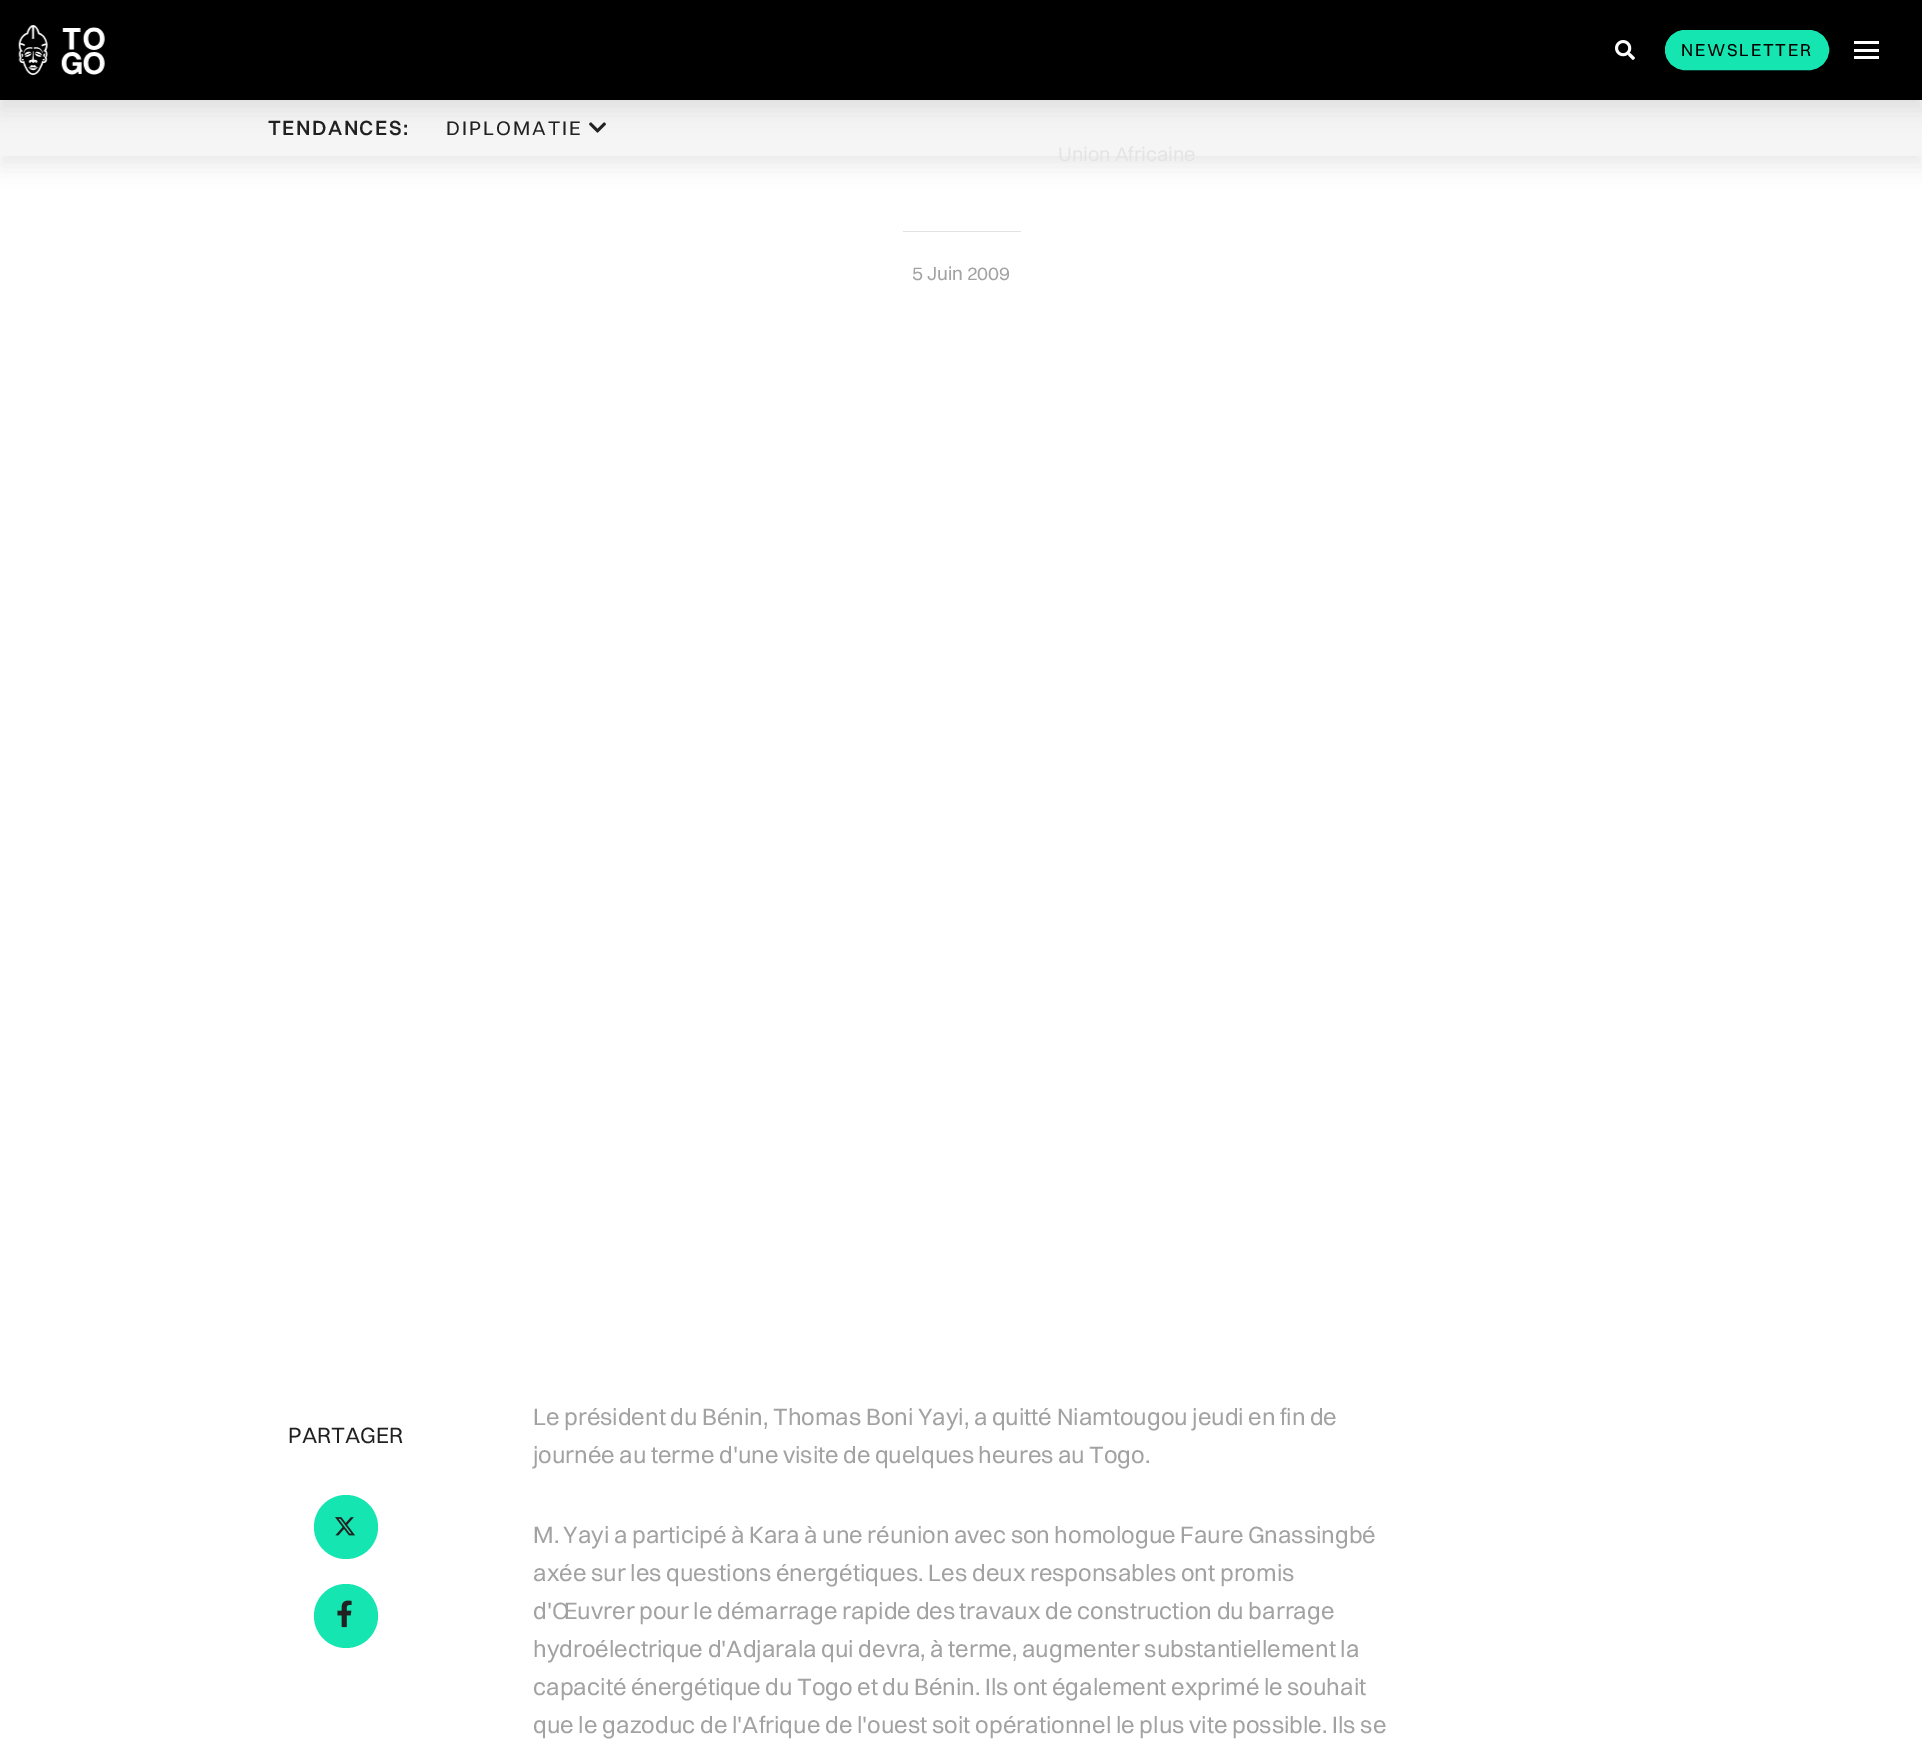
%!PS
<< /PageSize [1922 1754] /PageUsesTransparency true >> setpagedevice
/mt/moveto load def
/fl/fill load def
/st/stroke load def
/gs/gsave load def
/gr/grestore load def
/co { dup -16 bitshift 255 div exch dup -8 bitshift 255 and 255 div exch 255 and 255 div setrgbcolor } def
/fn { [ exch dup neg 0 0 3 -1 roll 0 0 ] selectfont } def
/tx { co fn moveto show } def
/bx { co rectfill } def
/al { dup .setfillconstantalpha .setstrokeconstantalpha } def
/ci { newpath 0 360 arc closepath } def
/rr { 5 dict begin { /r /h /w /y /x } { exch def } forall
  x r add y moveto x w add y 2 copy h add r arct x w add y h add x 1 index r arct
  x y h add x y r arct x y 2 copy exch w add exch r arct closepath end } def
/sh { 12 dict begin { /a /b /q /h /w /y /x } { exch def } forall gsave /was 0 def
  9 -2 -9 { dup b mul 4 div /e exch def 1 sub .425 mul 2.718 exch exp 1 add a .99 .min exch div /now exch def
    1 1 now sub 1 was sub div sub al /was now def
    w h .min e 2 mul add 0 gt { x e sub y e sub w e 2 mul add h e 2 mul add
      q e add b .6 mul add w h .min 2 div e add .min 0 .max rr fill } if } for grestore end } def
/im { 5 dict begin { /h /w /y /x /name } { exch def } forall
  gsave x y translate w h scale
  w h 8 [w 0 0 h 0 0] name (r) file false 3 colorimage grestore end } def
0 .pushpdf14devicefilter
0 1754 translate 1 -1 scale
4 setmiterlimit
0 0 1922 1754 16#FFFFFF bx
16#000000 co
0 110 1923 56 0 10 .08 sh
0 100 1922 56 16#F5F5F5 bx
(media/1.raw) 589 122 17 11 im
16#000000 co
0 10 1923 100 0 10 .08 sh
0 0 1922 100 16#000000 bx
(media/2.raw) 18 25 87 50 im
(media/3.raw) 1615 40 20 20 im
16#15E5B1 co
1665.5 30.5 163 39 19.5 rr gs fl gr
st
1854 49 25 3 16#FFFFFF bx
1854 41 25 3 16#FFFFFF bx
1854 56 25 3 16#FFFFFF bx
903 231 118 1 16#E2E2E2 bx
16#15E5B1 co
346 1527 32 ci fl
(media/4.raw) 335 1517 20 19 im
346 1616 32 ci fl
(media/5.raw) 337 1600 15 28 im
/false-Bold 20 fn
16#212121 co
268 135 mt 2 0 (TENDANCES:) ashow
/false-Regular 20 fn
446 135 mt 2 0 (DIPLOMATIE) ashow
/false-Regular 17.5 fn
16#000000 co
1681 56 mt 1.75 0 (NEWSLETTER) ashow
(Union Africaine) 1058 161 /false-Regular 20 16#E4E4E4 tx
(5 Juin 2009) 912 280 /false-Regular 19 16#A2A2A2 tx
(PARTAGER) 288 1443 /false-Regular 22.5 16#212121 tx
/false-Regular 23.75 fn
16#A2A2A2 co
533 1425 mt -.25 0 32 (Le président du Bénin, Thomas Boni Yayi, a quitté Niamtougou jeudi en fin de) widthshow
533 1463 mt -.4 0 32 (journée au terme d'une visite de quelques heures au Togo.) widthshow
533 1543 mt -.3 0 32 (M. Yayi a participé à Kara à une réunion avec son homologue Faure Gnassingbé) widthshow
(axée sur les questions énergétiques. Les deux responsables ont promis) 533 1581 /false-Regular 23.75 16#A2A2A2 tx
(d'Œuvrer pour le démarrage rapide des) 533 1619 /false-Regular 23.75 16#A2A2A2 tx
(travaux de construction du barrage) 959 1619 /false-Regular 23.75 16#A2A2A2 tx
533 1657 mt -.25 0 32 (hydroélectrique d'Adjarala qui devra, à terme, augmenter substantiellement la) widthshow
533 1695 mt -.25 0 32 (capacité énergétique du Togo et du Bénin. Ils ont également exprimé le souhait) widthshow
(que le gazoduc de l'Afrique de l'ouest soit opérationnel le plus vite possible. Ils se) 533 1733 /false-Regular 23.75 16#A2A2A2 tx
.poppdf14devicefilter showpage
